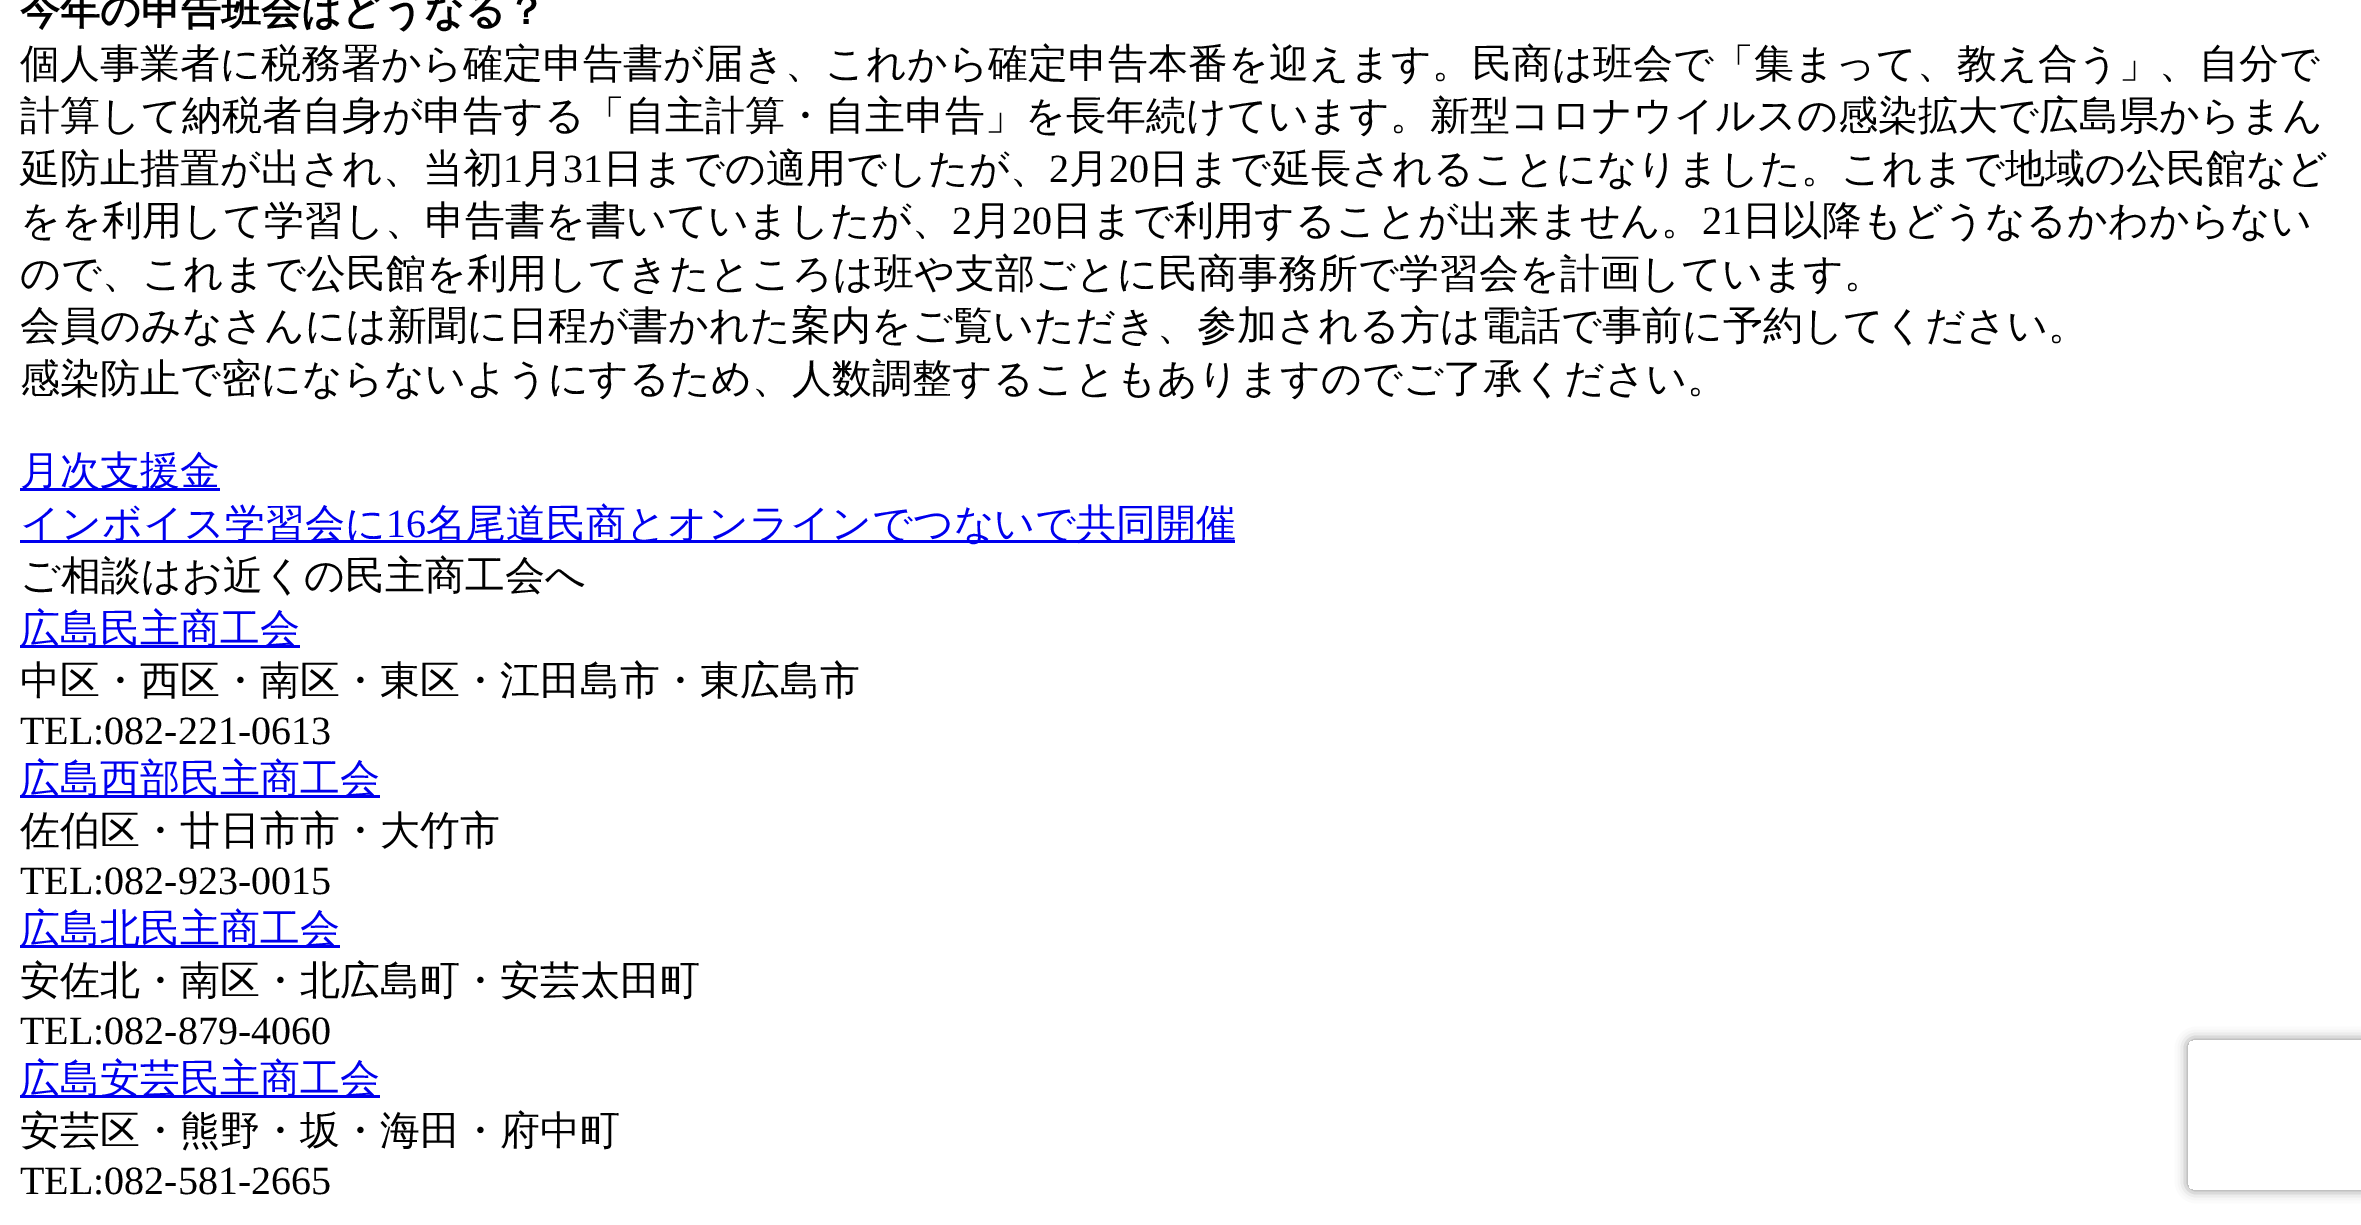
%!PS
<< /PageSize [2361 1225] /PageUsesTransparency true >> setpagedevice
/mt/moveto load def
/li/lineto load def
/ct/curveto load def
/cp/closepath load def
/gs/gsave load def
/gr/grestore load def
/co { dup -16 bitshift 255 div exch dup -8 bitshift 255 and 255 div exch 255 and 255 div setrgbcolor } def
/fn { [ exch dup neg 0 0 3 -1 roll 0 0 ] selectfont } def
/tx { co fn moveto show } def
/bx { co rectfill } def
/al { dup .setfillconstantalpha .setstrokeconstantalpha } def
/rr { 5 dict begin { /r /h /w /y /x } { exch def } forall
  x r add y moveto x w add y 2 copy h add r arct x w add y h add x 1 index r arct
  x y h add x y r arct x y 2 copy exch w add exch r arct closepath end } def
/sh { 12 dict begin { /a /b /q /h /w /y /x } { exch def } forall gsave /was 0 def
  9 -2 -9 { dup b mul 4 div /e exch def 1 sub .425 mul 2.718 exch exp 1 add a .99 .min exch div /now exch def
    1 1 now sub 1 was sub div sub al /was now def
    w h .min e 2 mul add 0 gt { x e sub y e sub w e 2 mul add h e 2 mul add
      q e add b .6 mul add w h .min 2 div e add .min 0 .max rr fill } if } for grestore end } def
0 .pushpdf14devicefilter
0 1225 translate 1 -1 scale
4 setmiterlimit
0 0 2361 1225 16#FFFFFF bx
20 488 200 3 16#0000EE bx
20 540 1215 3 16#0000EE bx
20 645 280 3 16#0000EE bx
20 795 360 3 16#0000EE bx
20 945 320 3 16#0000EE bx
20 1095 360 3 16#0000EE bx
gs
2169 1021 mt 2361 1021 li 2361 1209 li 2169 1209 li cp 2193 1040 mt 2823 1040 li 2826 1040 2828 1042 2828 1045 ct 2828 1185 li 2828 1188 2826 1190 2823 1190 ct 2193 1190 li 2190 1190 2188 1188 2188 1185 ct 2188 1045 li 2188 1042 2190 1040 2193 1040 ct cp eoclip newpath
16#808080 co
2188 1040 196 150 5 6 1 sh
gr
(今年の申告班会はどうなる？) 20 24 /WenQuanYiZenHei-Bold 40 16#000000 tx
(個人事業者に税務署から確定申告書が届き、これから確定申告本番を迎えます。民商は班会で「集まって、教え合う」、自分で) 20 77 /WenQuanYiZenHei-Medium 40 16#000000 tx
(計算して納税者自身が申告する「自主計算・自主申告」を長年続けています。新型コロナウイルスの感染拡大で広島県からまん) 20 129 /WenQuanYiZenHei-Medium 40 16#000000 tx
(延防止措置が出され、当初) 20 182 /WenQuanYiZenHei-Medium 40 16#000000 tx
(1) 503 182 /LiberationSerif-Regular 40 16#000000 tx
(月) 523 182 /WenQuanYiZenHei-Medium 40 16#000000 tx
(31) 563 182 /LiberationSerif-Regular 40 16#000000 tx
(日までの適用でしたが、) 603 182 /WenQuanYiZenHei-Medium 40 16#000000 tx
(2) 1049 182 /LiberationSerif-Regular 40 16#000000 tx
(月) 1069 182 /WenQuanYiZenHei-Medium 40 16#000000 tx
(20) 1109 182 /LiberationSerif-Regular 40 16#000000 tx
(日まで延長されることになりました。これまで地域の公民館など) 1149 182 /WenQuanYiZenHei-Medium 40 16#000000 tx
(をを利用して学習し、申告書を書いていましたが、) 20 234 /WenQuanYiZenHei-Medium 40 16#000000 tx
(2) 952 234 /LiberationSerif-Regular 40 16#000000 tx
(月) 972 234 /WenQuanYiZenHei-Medium 40 16#000000 tx
(20) 1012 234 /LiberationSerif-Regular 40 16#000000 tx
(日まで利用することが出来ません。) 1052 234 /WenQuanYiZenHei-Medium 40 16#000000 tx
(21) 1702 234 /LiberationSerif-Regular 40 16#000000 tx
(日以降もどうなるかわからない) 1742 234 /WenQuanYiZenHei-Medium 40 16#000000 tx
(ので、これまで公民館を利用してきたところは班や支部ごとに民商事務所で学習会を計画しています。) 20 287 /WenQuanYiZenHei-Medium 40 16#000000 tx
(会員のみなさんには新聞に日程が書かれた案内をご覧いただき、参加される方は電話で事前に予約してください。) 20 339 /WenQuanYiZenHei-Medium 40 16#000000 tx
(感染防止で密にならないようにするため、人数調整することもありますのでご了承ください。) 20 392 /WenQuanYiZenHei-Medium 40 16#000000 tx
(月次支援金) 20 484 /WenQuanYiZenHei-Medium 40 16#0000EE tx
(インボイス学習会に) 20 537 /WenQuanYiZenHei-Medium 40 16#0000EE tx
(16) 386 537 /LiberationSerif-Regular 40 16#0000EE tx
(名尾道民商とオンラインでつないで共同開催) 426 537 /WenQuanYiZenHei-Medium 40 16#0000EE tx
(ご相談はお近くの民主商工会へ) 20 589 /WenQuanYiZenHei-Medium 40 16#000000 tx
(広島民主商工会) 20 642 /WenQuanYiZenHei-Medium 40 16#0000EE tx
(中区・西区・南区・東区・江田島市・東広島市) 20 694 /WenQuanYiZenHei-Medium 40 16#000000 tx
(TEL:082-221-0613) 20 744 /LiberationSerif-Regular 40 16#000000 tx
(広島西部民主商工会) 20 792 /WenQuanYiZenHei-Medium 40 16#0000EE tx
(佐伯区・廿日市市・大竹市) 20 844 /WenQuanYiZenHei-Medium 40 16#000000 tx
(TEL:082-923-0015) 20 894 /LiberationSerif-Regular 40 16#000000 tx
(広島北民主商工会) 20 942 /WenQuanYiZenHei-Medium 40 16#0000EE tx
(安佐北・南区・北広島町・安芸太田町) 20 994 /WenQuanYiZenHei-Medium 40 16#000000 tx
(TEL:082-879-4060) 20 1044 /LiberationSerif-Regular 40 16#000000 tx
(広島安芸民主商工会) 20 1092 /WenQuanYiZenHei-Medium 40 16#0000EE tx
(安芸区・熊野・坂・海田・府中町) 20 1144 /WenQuanYiZenHei-Medium 40 16#000000 tx
(TEL:082-581-2665) 20 1194 /LiberationSerif-Regular 40 16#000000 tx
.poppdf14devicefilter showpage
